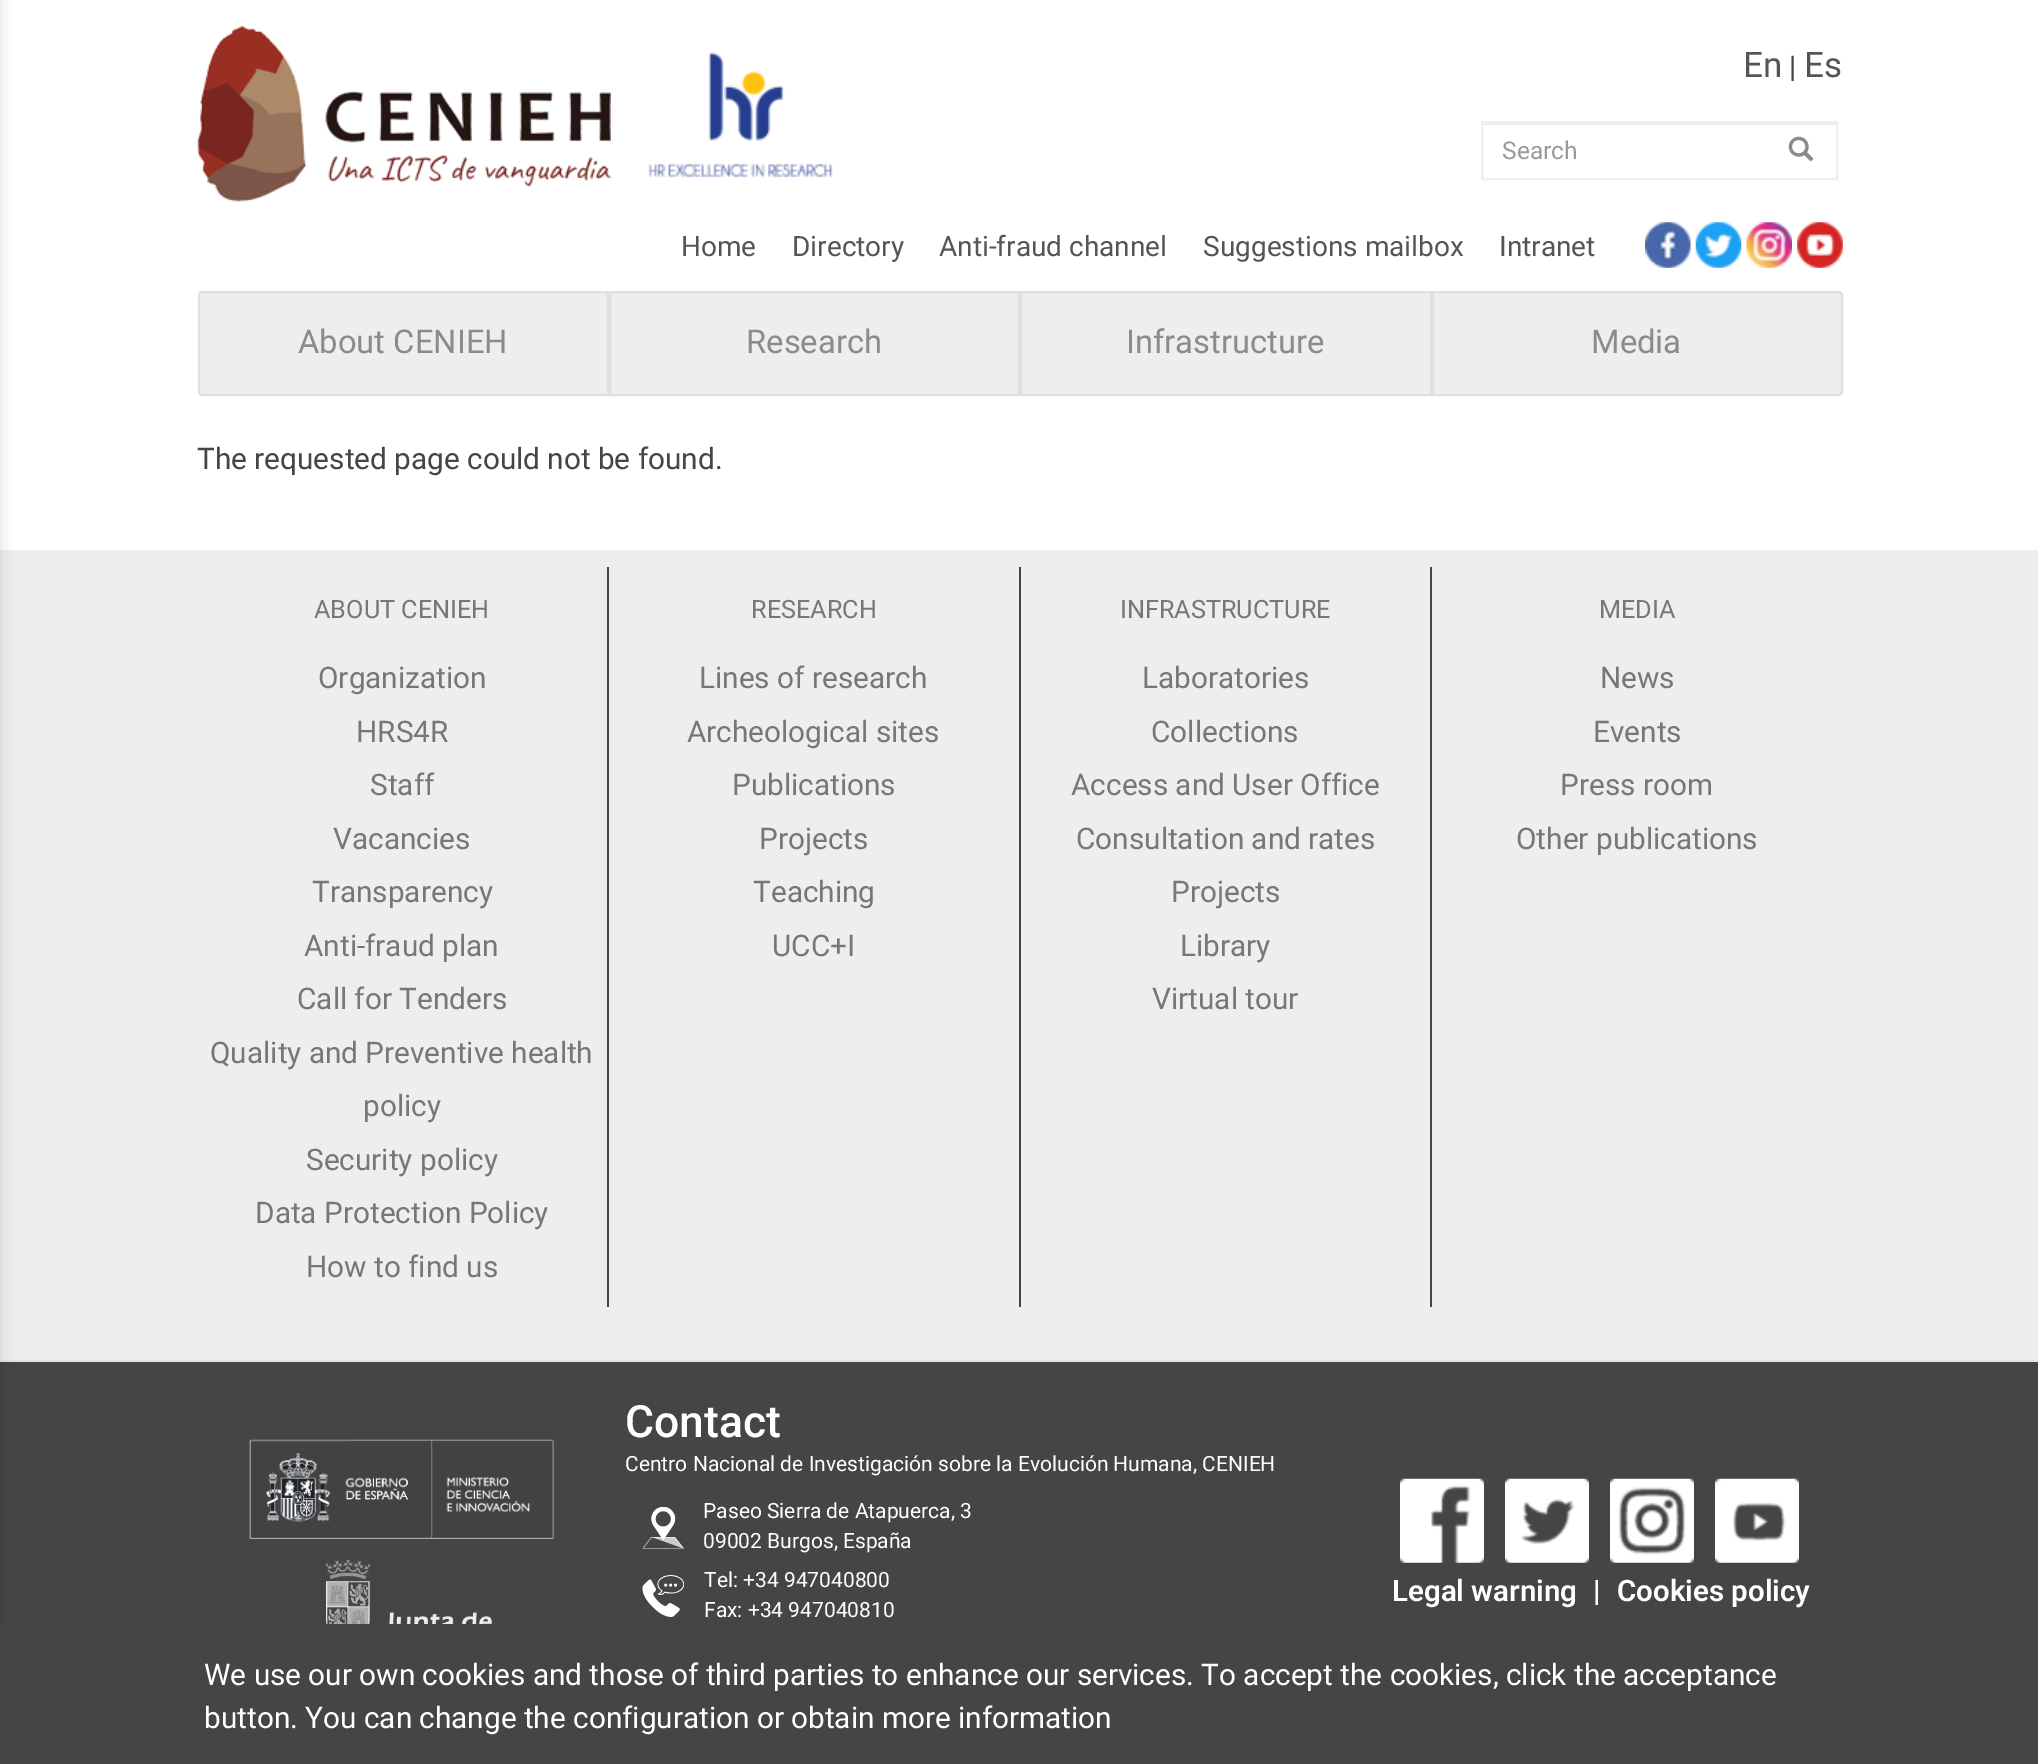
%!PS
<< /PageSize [2038 1764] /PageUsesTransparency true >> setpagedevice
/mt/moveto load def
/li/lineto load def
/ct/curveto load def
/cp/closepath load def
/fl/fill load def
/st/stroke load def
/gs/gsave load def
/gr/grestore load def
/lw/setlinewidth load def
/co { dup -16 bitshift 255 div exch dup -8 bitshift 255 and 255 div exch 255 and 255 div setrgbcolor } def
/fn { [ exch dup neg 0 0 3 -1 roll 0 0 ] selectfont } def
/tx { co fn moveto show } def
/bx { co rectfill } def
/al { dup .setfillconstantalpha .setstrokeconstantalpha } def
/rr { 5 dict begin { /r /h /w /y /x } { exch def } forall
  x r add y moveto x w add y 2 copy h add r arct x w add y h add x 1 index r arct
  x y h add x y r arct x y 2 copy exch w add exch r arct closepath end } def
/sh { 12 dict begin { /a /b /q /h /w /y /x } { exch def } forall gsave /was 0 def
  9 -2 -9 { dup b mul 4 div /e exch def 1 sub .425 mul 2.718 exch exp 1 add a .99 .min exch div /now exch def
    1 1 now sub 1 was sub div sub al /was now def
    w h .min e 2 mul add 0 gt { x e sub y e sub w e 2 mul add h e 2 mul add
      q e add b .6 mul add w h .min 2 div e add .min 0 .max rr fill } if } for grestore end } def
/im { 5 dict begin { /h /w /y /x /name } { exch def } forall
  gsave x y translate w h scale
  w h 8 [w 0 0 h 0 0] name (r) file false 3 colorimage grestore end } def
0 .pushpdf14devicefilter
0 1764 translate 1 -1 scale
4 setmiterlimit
0 0 2038 1764 16#FFFFFF bx
0 550 2038 810 16#EEEEEE bx
0 1362 2038 262 16#454545 bx
0 1360 2038 2 16#E5E5E5 bx
16#000000 co
-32 0 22 1764 0 10.5 .4 sh
(media/1.raw) 197 26 414 176 im
(media/2.raw) 648 52 185 126 im
1482 123 354 2 16#ECECEC bx
16#EEEEEE co
2 lw
1482 122 355 57 rectstroke
(media/3.raw) 1788 136 26 26 im
(media/4.raw) 1645 222 46 46 im
(media/5.raw) 1695 222 47 46 im
(media/6.raw) 1746 222 46 46 im
(media/7.raw) 1797 222 46 46 im
202 292 mt 608 292 li 608 395 li 202 395 li 200.5 395 199 393.5 199 392 ct 199 295 li 199 293.5 200.5 292 202 292 ct cp gs fl gr
16#E0E0E0 co
st
16#EEEEEE co
610 292 mt 1019 292 li 1019 395 li 610 395 li cp gs fl gr
16#E0E0E0 co
st
16#EEEEEE co
1021 292 mt 1431 292 li 1431 395 li 1021 395 li cp gs fl gr
16#E0E0E0 co
st
16#EEEEEE co
1433 292 mt 1839 292 li 1840.5 292 1842 293.5 1842 295 ct 1842 392 li 1842 393.5 1840.5 395 1839 395 ct 1433 395 li cp gs fl gr
16#E0E0E0 co
st
607 567 2 740 16#454545 bx
1019 567 2 740 16#454545 bx
1430 567 2 740 16#454545 bx
(media/8.raw) 249 1439 305 100 im
(media/9.raw) 312 1559 180 65 im
(media/10.raw) 642 1507 42 42 im
(media/11.raw) 642 1575 42 42 im
(media/12.raw) 1400 1478 84 85 im
(media/13.raw) 1505 1478 84 85 im
(media/14.raw) 1610 1478 84 85 im
(media/15.raw) 1715 1478 84 85 im
0 1624 2038 140 16#454545 bx
(En) 1743 77 /Roboto-Regular 35 16#555555 tx
(|) 1789 77 /Roboto-Regular 29.75 16#454545 tx
(Es) 1804 77 /Roboto-Regular 35 16#555555 tx
(Search) 1502 159 /Roboto-Regular 24.5 16#999999 tx
(Home) 681 256 /Roboto-Regular 28 16#555555 tx
(Directory) 792 256 /Roboto-Regular 28 16#555555 tx
(Anti-fraud channel) 939 256 /Roboto-Regular 28 16#555555 tx
(Suggestions mailbox) 1203 256 /Roboto-Regular 28 16#555555 tx
(Intranet) 1499 256 /Roboto-Regular 28 16#555555 tx
(About CENIEH) 298 353 /Roboto-Regular 32.75 16#8B8B8B tx
(Research) 746 353 /Roboto-Regular 32.75 16#8B8B8B tx
(Infrastructure) 1126 353 /Roboto-Regular 32.75 16#8B8B8B tx
(Media) 1591 353 /Roboto-Regular 32.75 16#8B8B8B tx
(The requested page could not be found.) 197 469 /Roboto-Regular 29.75 16#454545 tx
(ABOUT CENIEH) 314 618 /Roboto-Regular 25.25 16#777777 tx
(Organization) 318 688 /Roboto-Regular 29.75 16#777777 tx
(HRS4R) 356 742 /Roboto-Regular 29.75 16#777777 tx
(Staff) 370 795 /Roboto-Regular 29.75 16#777777 tx
(Vacancies) 333 849 /Roboto-Regular 29.75 16#777777 tx
(Transparency) 312 902 /Roboto-Regular 29.75 16#777777 tx
(Anti-fraud plan) 304 956 /Roboto-Regular 29.75 16#777777 tx
(Call for Tenders) 297 1009 /Roboto-Regular 29.75 16#777777 tx
(Quality and Preventive health) 210 1063 /Roboto-Regular 29.75 16#777777 tx
(policy) 363 1116 /Roboto-Regular 29.75 16#777777 tx
(Security policy) 306 1170 /Roboto-Regular 29.75 16#777777 tx
(Data Protection Policy) 255 1223 /Roboto-Regular 29.75 16#777777 tx
(How to find us) 306 1277 /Roboto-Regular 29.75 16#777777 tx
(RESEARCH) 751 618 /Roboto-Regular 25.25 16#777777 tx
(Lines of research) 699 688 /Roboto-Regular 29.75 16#777777 tx
(Archeological sites) 687 742 /Roboto-Regular 29.75 16#777777 tx
(Publications) 732 795 /Roboto-Regular 29.75 16#777777 tx
(Projects) 759 849 /Roboto-Regular 29.75 16#777777 tx
(Teaching) 753 902 /Roboto-Regular 29.75 16#777777 tx
(UCC+I) 772 956 /Roboto-Regular 29.75 16#777777 tx
(INFRASTRUCTURE) 1120 618 /Roboto-Regular 25.25 16#777777 tx
(Laboratories) 1142 688 /Roboto-Regular 29.75 16#777777 tx
(Collections) 1151 742 /Roboto-Regular 29.75 16#777777 tx
(Access and User Office) 1071 795 /Roboto-Regular 29.75 16#777777 tx
(Consultation and rates) 1076 849 /Roboto-Regular 29.75 16#777777 tx
(Projects) 1171 902 /Roboto-Regular 29.75 16#777777 tx
(Library) 1180 956 /Roboto-Regular 29.75 16#777777 tx
(Virtual tour) 1152 1009 /Roboto-Regular 29.75 16#777777 tx
(MEDIA) 1599 618 /Roboto-Regular 25.25 16#777777 tx
(News) 1600 688 /Roboto-Regular 29.75 16#777777 tx
(Events) 1593 742 /Roboto-Regular 29.75 16#777777 tx
(Press room) 1560 795 /Roboto-Regular 29.75 16#777777 tx
(Other publications) 1516 849 /Roboto-Regular 29.75 16#777777 tx
(Contact) 625 1437 /Roboto-Medium 44.5 16#FFFFFF tx
(Centro Nacional de Investigación sobre la Evolución Humana, CENIEH) 625 1471 /Roboto-Regular 21 16#FFFFFF tx
(Paseo Sierra de Atapuerca, 3) 703 1518 /Roboto-Regular 21 16#FFFFFF tx
(09002 Burgos, España) 703 1548 /Roboto-Regular 21 16#FFFFFF tx
(Tel: +34 947040800) 704 1587 /Roboto-Regular 21 16#FFFFFF tx
(Fax: +34 947040810) 704 1617 /Roboto-Regular 21 16#FFFFFF tx
(Legal warning) 1392 1601 /Roboto-SemiBold 29.5 16#FFFFFF tx
(|) 1593 1601 /Roboto-SemiBold 29.5 16#FFFFFF tx
(Cookies policy) 1617 1601 /Roboto-SemiBold 29.5 16#FFFFFF tx
(We use our own cookies and those of third parties to enhance our services. To accept the cookies, click the acceptance) 204 1685 /Roboto-Regular 29.75 16#FFFFFF tx
(button. You can change the configuration or obtain more information) 204 1728 /Roboto-Regular 29.75 16#FFFFFF tx
.poppdf14devicefilter showpage
